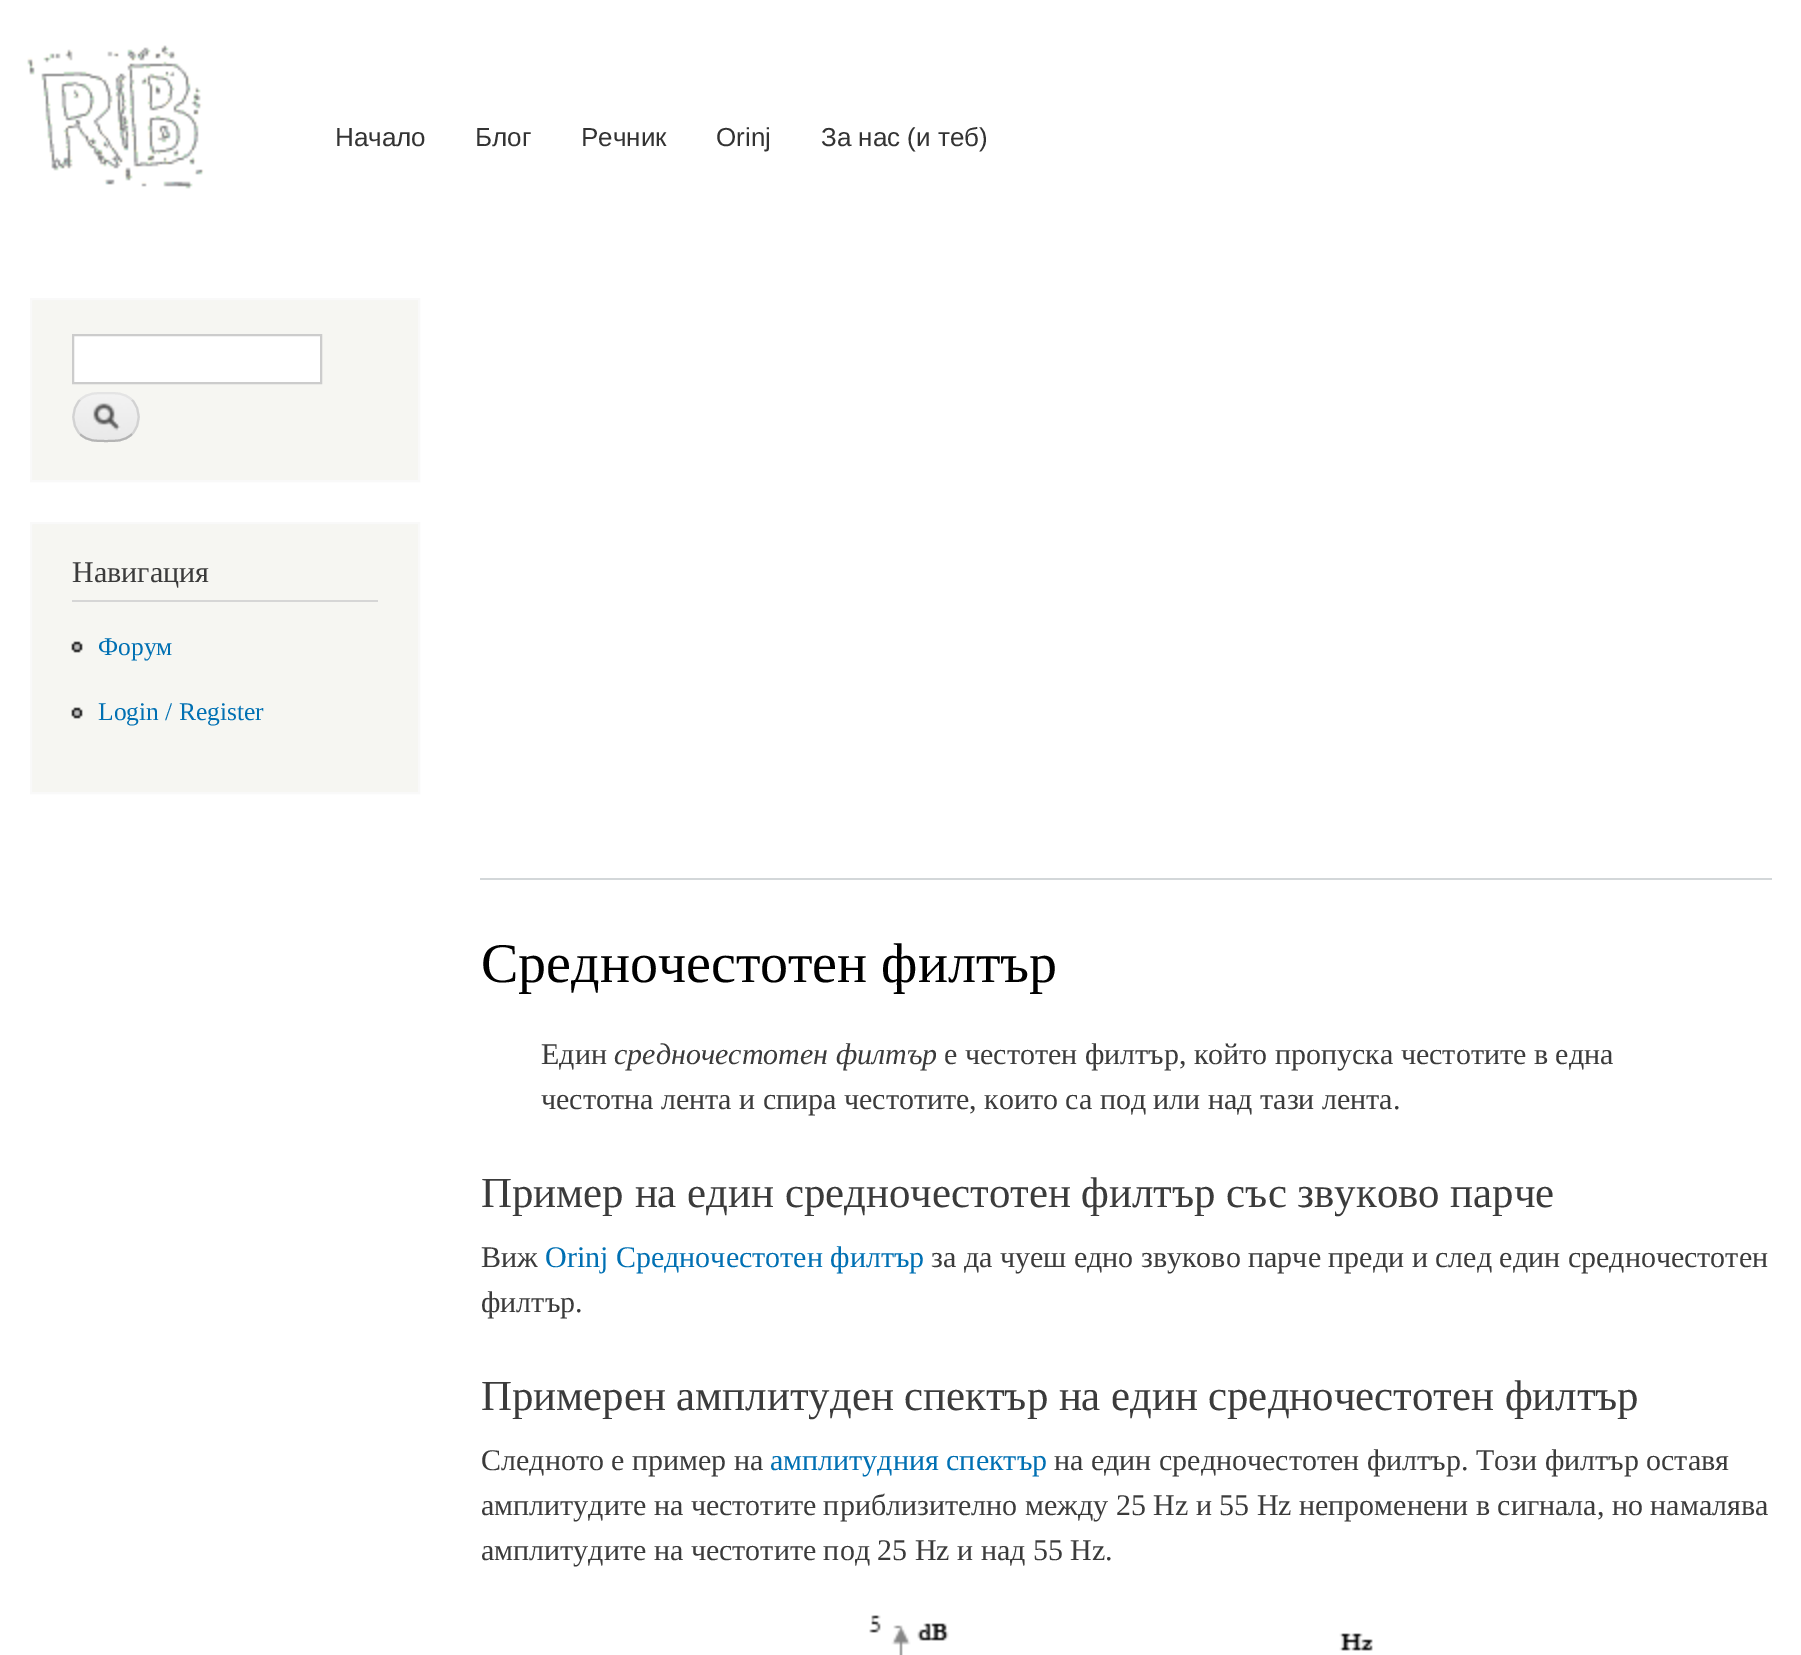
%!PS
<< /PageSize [1801 1655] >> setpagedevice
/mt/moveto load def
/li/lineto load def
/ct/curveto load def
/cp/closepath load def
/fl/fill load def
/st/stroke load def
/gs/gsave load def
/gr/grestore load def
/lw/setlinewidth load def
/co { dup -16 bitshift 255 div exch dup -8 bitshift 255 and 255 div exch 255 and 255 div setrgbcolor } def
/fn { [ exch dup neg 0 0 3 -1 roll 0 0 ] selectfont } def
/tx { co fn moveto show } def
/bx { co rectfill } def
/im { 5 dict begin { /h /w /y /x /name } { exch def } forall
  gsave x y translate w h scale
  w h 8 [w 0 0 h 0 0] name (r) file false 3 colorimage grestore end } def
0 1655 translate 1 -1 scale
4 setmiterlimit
0 0 1801 1655 16#FFFFFF bx
(media/1.raw) 27 45 177 144 im
16#F6F6F2 co
31 299 mt 419 299 li 419 481 li 31 481 li cp gs fl gr
16#F9F9F9 co
2 lw
st
16#FFFFFF co
73 335 mt 321 335 li 321 383 li 73 383 li cp gs fl gr
16#CCCCCC co
st
(media/2.raw) 72 394 68 48 im
16#E4E4E4 co
80 400 mt 87.5 392.5 96.5 393 106 393 ct 115.5 393 124.5 392.5 132 400 ct st
16#D2D2D2 co
132 400 mt 141 409.5 141 424.5 132 434 ct st
16#B4B4B4 co
132 434 mt 124.5 441.5 115.5 441 106 441 ct 96.5 441 87.5 441.5 80 434 ct st
16#D2D2D2 co
80 434 mt 71 424.5 71 409.5 80 400 ct st
16#F6F6F2 co
31 523 mt 419 523 li 419 793 li 31 793 li cp gs fl gr
16#F9F9F9 co
st
72 600 306 2 16#D6D6D6 bx
(media/3.raw) 71 641 12 12 im
(media/3.raw) 71 707 12 12 im
480 878 1292 2 16#D3D7D9 bx
(media/4.raw) 869 1615 504 40 im
(Начало) 335 146 /LiberationSans-Regular 26 16#333333 tx
(Блог) 475 146 /LiberationSans-Regular 26 16#333333 tx
(Речник) 581 146 /LiberationSans-Regular 26 16#333333 tx
(Orinj) 716 146 /LiberationSans-Regular 26 16#333333 tx
(За нас \(и теб\)) 821 146 /LiberationSans-Regular 26 16#333333 tx
(Навигация) 72 582 /LiberationSerif-Regular 30 16#3B3B3B tx
(Форум) 98 655 /LiberationSerif-Regular 25.5 16#0070B3 tx
(Login / Register) 98 720 /LiberationSerif-Regular 25.5 16#0070B3 tx
(Средночестотен филтър) 481 982 /LiberationSerif-Regular 56 16#000000 tx
(Един) 541 1064 /LiberationSerif-Regular 30 16#3B3B3B tx
(средночестотен филтър) 614 1064 /LiberationSerif-Italic 30 16#3B3B3B tx
(е честотен филтър, който пропуска честотите в една) 944 1064 /LiberationSerif-Regular 30 16#3B3B3B tx
(честотна лента и спира честотите, които са под или над тази лента.) 541 1109 /LiberationSerif-Regular 30 16#3B3B3B tx
(Пример на един средночестотен филтър със звуково парче) 481 1207 /LiberationSerif-Regular 42.85 16#3B3B3B tx
(Виж) 481 1267 /LiberationSerif-Regular 30 16#3B3B3B tx
(Orinj Средночестотен филтър) 545 1267 /LiberationSerif-Regular 30 16#0070B3 tx
(за да чуеш едно звуково парче преди и след един средночестотен) 931 1267 /LiberationSerif-Regular 30 16#3B3B3B tx
(филтър.) 481 1312 /LiberationSerif-Regular 30 16#3B3B3B tx
/LiberationSerif-Regular 42.85 fn
481 1410 mt -.25 0 32 (Примерен амплитуден спектър на един средночестотен филтър) widthshow
(Следното е пример на) 481 1470 /LiberationSerif-Regular 30 16#3B3B3B tx
(амплитудния спектър) 770 1470 /LiberationSerif-Regular 30 16#0070B3 tx
(на един средночестотен филтър. Този филтър оставя) 1054 1470 /LiberationSerif-Regular 30 16#3B3B3B tx
(амплитудите на честотите приблизително между 25 Hz и 55 Hz непроменени в сигнала, но намалява) 481 1515 /LiberationSerif-Regular 30 16#3B3B3B tx
(амплитудите на честотите под 25 Hz и над 55 Hz.) 481 1560 /LiberationSerif-Regular 30 16#3B3B3B tx
showpage
